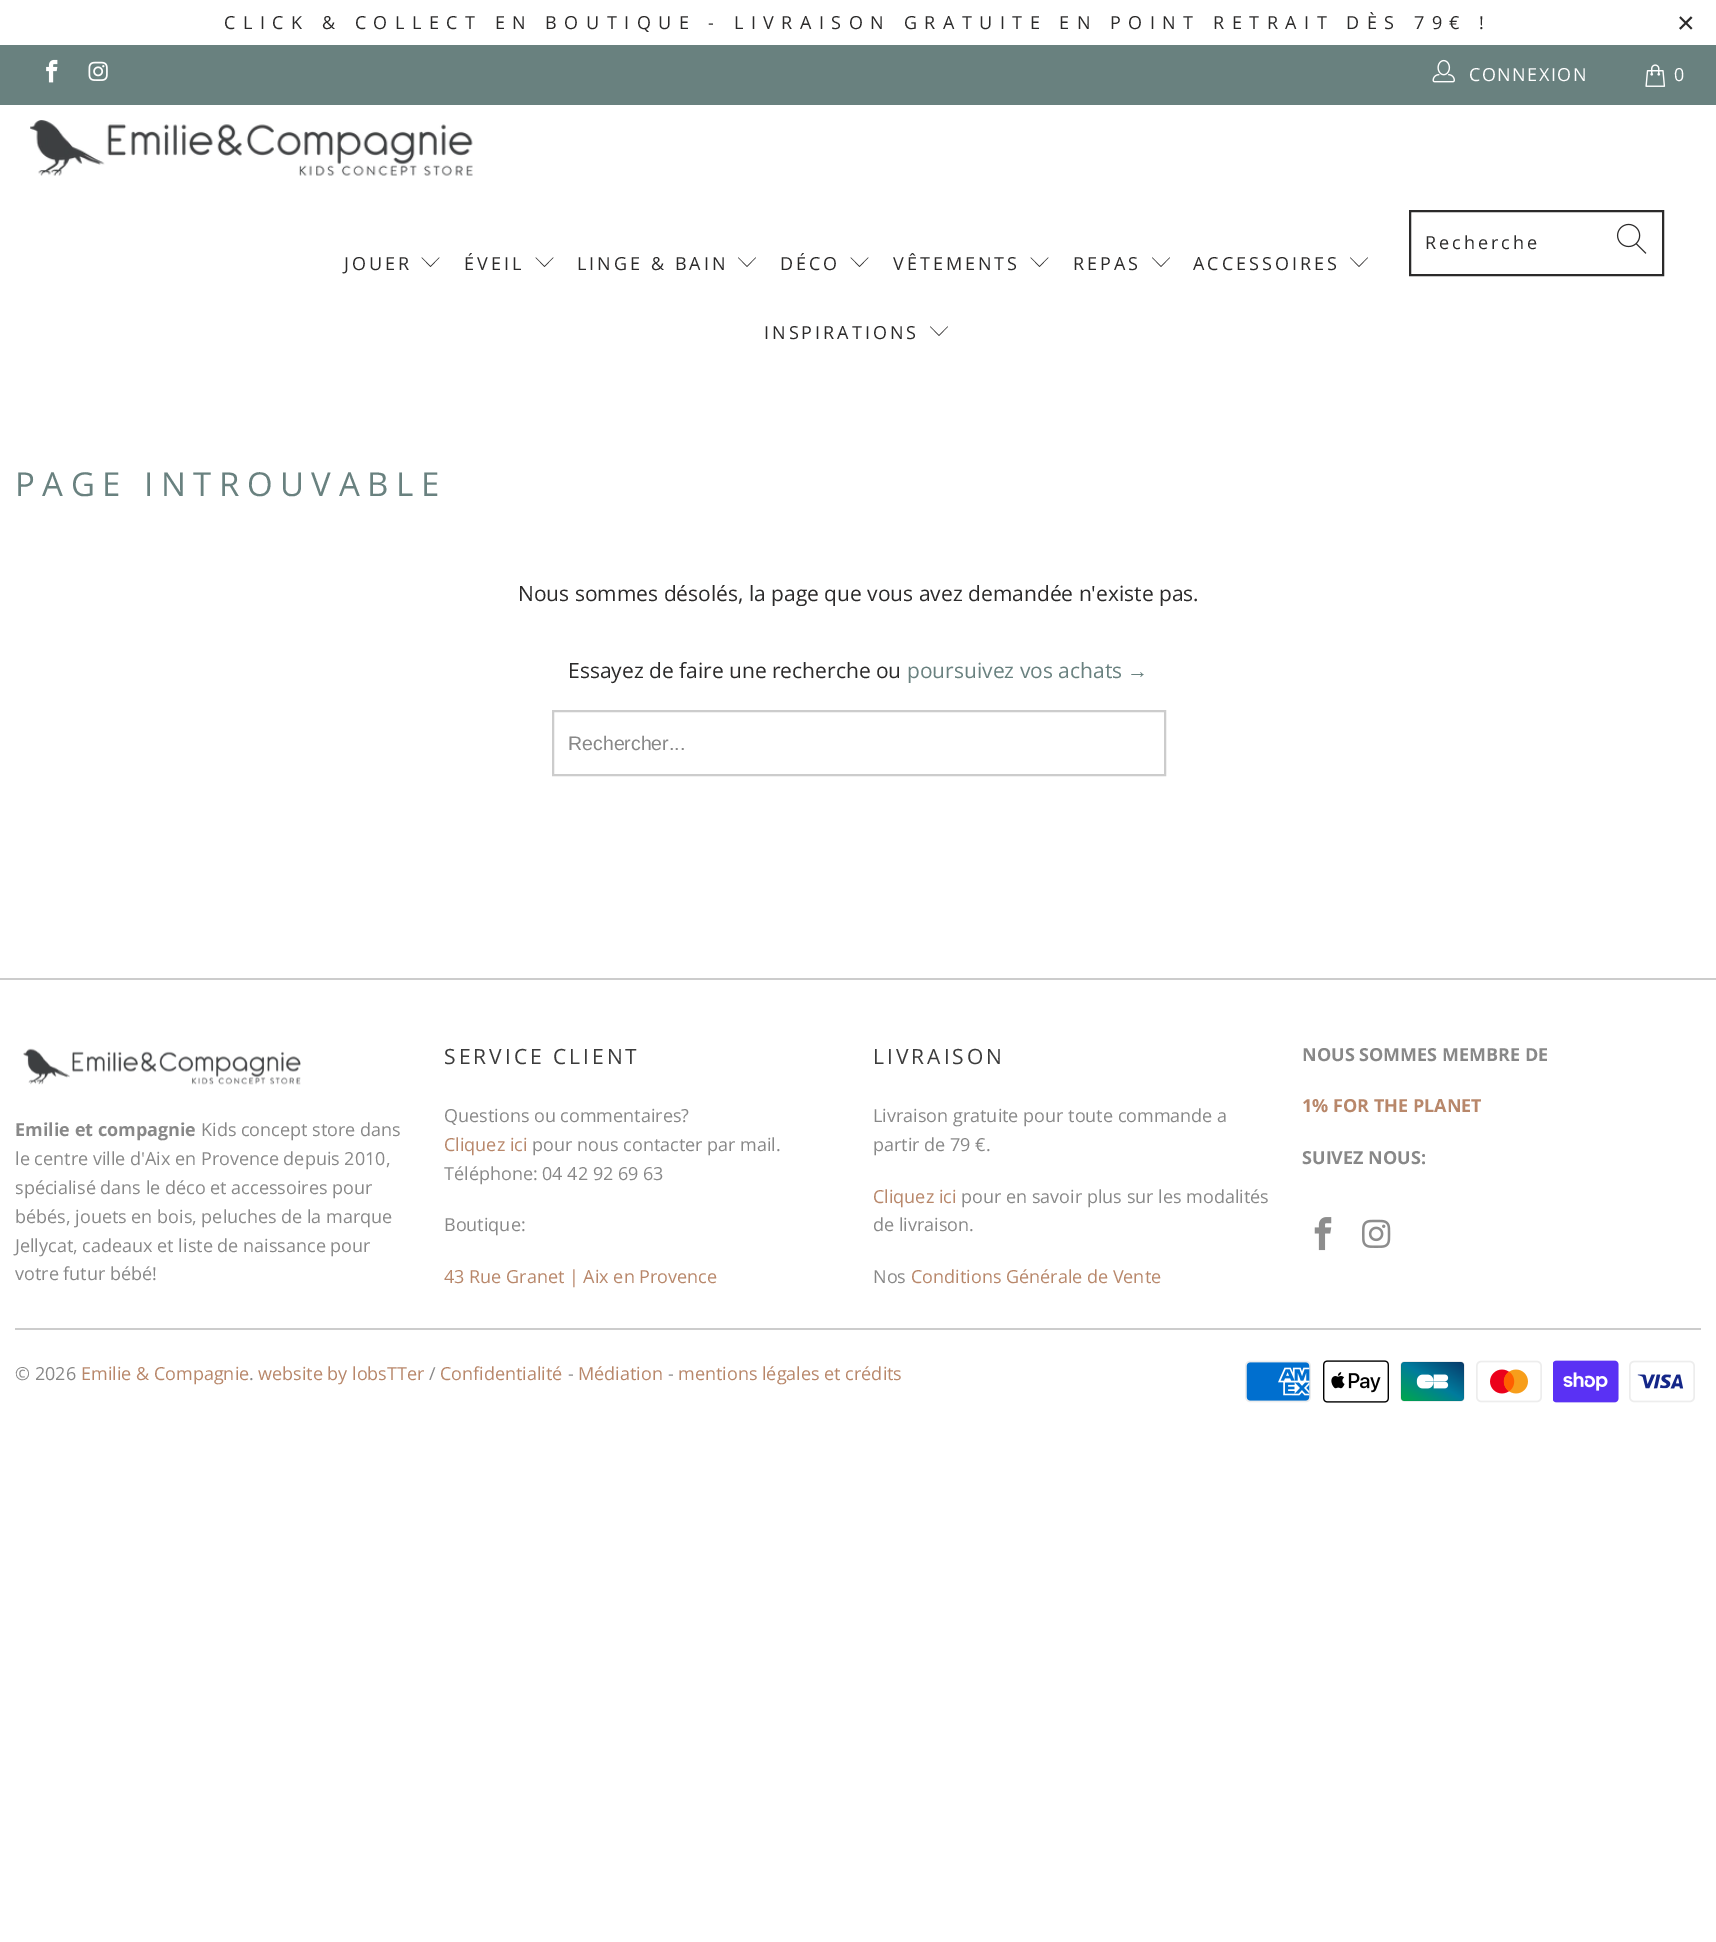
%!PS
<< /PageSize [1716 1942] >> setpagedevice
/mt/moveto load def
/li/lineto load def
/cp/closepath load def
/fl/fill load def
/lw/setlinewidth load def
/co { dup -16 bitshift 255 div exch dup -8 bitshift 255 and 255 div exch 255 and 255 div setrgbcolor } def
/fn { [ exch dup neg 0 0 3 -1 roll 0 0 ] selectfont } def
/tx { co fn moveto show } def
/bx { co rectfill } def
/im { 5 dict begin { /h /w /y /x /name } { exch def } forall
  gsave x y translate w h scale
  w h 8 [w 0 0 h 0 0] name (r) file false 3 colorimage grestore end } def
0 1942 translate 1 -1 scale
4 setmiterlimit
0 0 1716 1942 16#FFFFFF bx
0 45 1716 60 16#69817F bx
(media/1.raw) 46 59 12 24 im
(media/2.raw) 88 61 20 20 im
(media/3.raw) 1432 59 23 24 im
(media/4.raw) 1645 64 21 23 im
(media/5.raw) 30 120 443 56 im
16#2B2A2A co
2 lw
1410 211 253 64 rectstroke
(media/6.raw) 1616 223 31 31 im
430.5 267 mt 421.5 257.5 li 422 257.5 li 430.5 266 li 439 257.5 li 439.5 257.5 li cp fl
544.5 267 mt 535.5 257.5 li 536 257.5 li 544.5 266 li 553 257.5 li 553.5 257.5 li cp fl
747 267 mt 738 257.5 li 738.5 257.5 li 747 266 li 755.5 257.5 li 756 257.5 li cp fl
859.5 267 mt 850.5 257.5 li 851 257.5 li 859.5 266 li 868 257.5 li 868.5 257.5 li cp fl
1039.5 267 mt 1030.5 257.5 li 1031 257.5 li 1039.5 266 li 1048 257.5 li 1048.5 257.5 li cp fl
1161 267 mt 1152 257.5 li 1152.5 257.5 li 1161 266 li 1169.5 257.5 li 1170 257.5 li cp fl
1359 267 mt 1350 257.5 li 1350.5 257.5 li 1359 266 li 1367.5 257.5 li 1368 257.5 li cp fl
939 336 mt 930 326.5 li 930.5 326.5 li 939 335 li 947.5 326.5 li 948 326.5 li cp fl
16#CCCCCC co
553 711 612 64 rectstroke
0 978 1716 2 16#CCCCCC bx
(media/7.raw) 23 1048 278 37 im
(media/8.raw) 1314 1217 18 34 im
(media/9.raw) 1362 1219 29 29 im
15 1328 1686 2 16#CCCCCC bx
(media/10.raw) 1245 1360 66 43 im
(media/11.raw) 1323 1360 66 43 im
(media/12.raw) 1400 1361 65 41 im
(media/13.raw) 1476 1360 66 43 im
(media/14.raw) 1553 1360 66 43 im
(media/15.raw) 1629 1360 66 43 im
/OpenSans-Regular 18 fn
16#2B2A2A co
224 29 mt 7.5 0 (CLICK & COLLECT EN BOUTIQUE - LIVRAISON GRATUITE EN POINT RETRAIT DÈS 79€ !) ashow
/LiberationSans-Regular 30 fn
1677 33 mt 7.5 0 (×) ashow
/OpenSans-Regular 18 fn
16#FFFFFF co
1469 81 mt 1.5 0 (CONNEXION) ashow
1674 81 mt 1.5 0 (0) ashow
16#2B2A2A co
1425 249 mt 3 0 (Recherche) ashow
344 270 mt 3 0 (JOUER) ashow
464 270 mt 3 0 (ÉVEIL) ashow
577 270 mt 3 0 (LINGE & BAIN) ashow
780 270 mt 3 0 (DÉCO) ashow
893 270 mt 3 0 (VÊTEMENTS) ashow
1073 270 mt 3 0 (REPAS) ashow
1193 270 mt 3 0 (ACCESSOIRES) ashow
764 339 mt 3 0 (INSPIRATIONS) ashow
/OpenSans-Regular 33 fn
16#69817F co
15 496 mt 7.5 0 (PAGE INTROUVABLE) ashow
(Nous sommes désolés, la page que vous avez demandée n'existe pas.) 518 601 /OpenSans-Regular 21 16#2B2A2A tx
(Essayez de faire une recherche ou) 568 678 /OpenSans-Regular 21 16#2B2A2A tx
(poursuivez vos achats) 907 678 /OpenSans-Regular 21 16#69817F tx
(→) 1127 678 /LiberationSans-Regular 21 16#69817F tx
(Rechercher...) 568 750 /LiberationSans-Regular 19.5 16#888888 tx
(Emilie et compagnie) 15 1136 /OpenSans-Bold 18 16#888888 tx
(Kids concept store dans) 201 1136 /OpenSans-Regular 18 16#888888 tx
(le centre ville d'Aix en Provence depuis 2010,) 15 1165 /OpenSans-Regular 18 16#888888 tx
(spécialisé dans le déco et accessoires pour) 15 1194 /OpenSans-Regular 18 16#888888 tx
(bébés, jouets en bois, peluches de la marque) 15 1223 /OpenSans-Regular 18 16#888888 tx
(Jellycat, cadeaux et liste de naissance pour) 15 1252 /OpenSans-Regular 18 16#888888 tx
(votre futur bébé!) 15 1280 /OpenSans-Regular 18 16#888888 tx
/OpenSans-Regular 21 fn
16#3B3B3B co
444 1064 mt 3 0 (SERVICE CLIENT) ashow
(Questions ou commentaires?) 444 1122 /OpenSans-Regular 18 16#888888 tx
(Cliquez ici) 444 1151 /OpenSans-Regular 18 16#B8876A tx
(pour nous contacter par mail.) 532 1151 /OpenSans-Regular 18 16#888888 tx
(Téléphone: 04 42 92 69 63) 444 1180 /OpenSans-Regular 18 16#888888 tx
(Boutique:) 444 1231 /OpenSans-Regular 18 16#888888 tx
(43 Rue Granet | Aix en Provence) 444 1283 /OpenSans-Regular 18 16#B8876A tx
/OpenSans-Regular 21 fn
16#3B3B3B co
873 1064 mt 3 0 (LIVRAISON) ashow
(Livraison gratuite pour toute commande a) 873 1122 /OpenSans-Regular 18 16#888888 tx
(partir de 79 €.) 873 1151 /OpenSans-Regular 18 16#888888 tx
(Cliquez ici) 873 1203 /OpenSans-Regular 18 16#B8876A tx
(pour en savoir plus sur les modalités) 961 1203 /OpenSans-Regular 18 16#888888 tx
(de livraison.) 873 1231 /OpenSans-Regular 18 16#888888 tx
(Nos) 873 1283 /OpenSans-Regular 18 16#888888 tx
(Conditions Générale de Vente) 911 1283 /OpenSans-Regular 18 16#B8876A tx
(NOUS SOMMES MEMBRE DE) 1302 1061 /OpenSans-Bold 18 16#888888 tx
(1% FOR THE PLANET) 1302 1112 /OpenSans-Bold 18 16#B8876A tx
(SUIVEZ NOUS:) 1302 1164 /OpenSans-Bold 18 16#888888 tx
(© 2026) 15 1380 /OpenSans-Regular 18 16#888888 tx
(Emilie & Compagnie) 81 1380 /OpenSans-Regular 18 16#B8876A tx
(website by lobsTTer) 258 1380 /OpenSans-Regular 18 16#B8876A tx
(/) 429 1380 /OpenSans-Regular 18 16#888888 tx
(Confidentialité) 440 1380 /OpenSans-Regular 18 16#B8876A tx
(-) 568 1380 /OpenSans-Regular 18 16#888888 tx
(Médiation) 578 1380 /OpenSans-Regular 18 16#B8876A tx
(-) 668 1380 /OpenSans-Regular 18 16#888888 tx
(mentions légales et crédits) 678 1380 /OpenSans-Regular 18 16#B8876A tx
(.) 249 1380 /OpenSans-Regular 18 16#888888 tx
showpage
